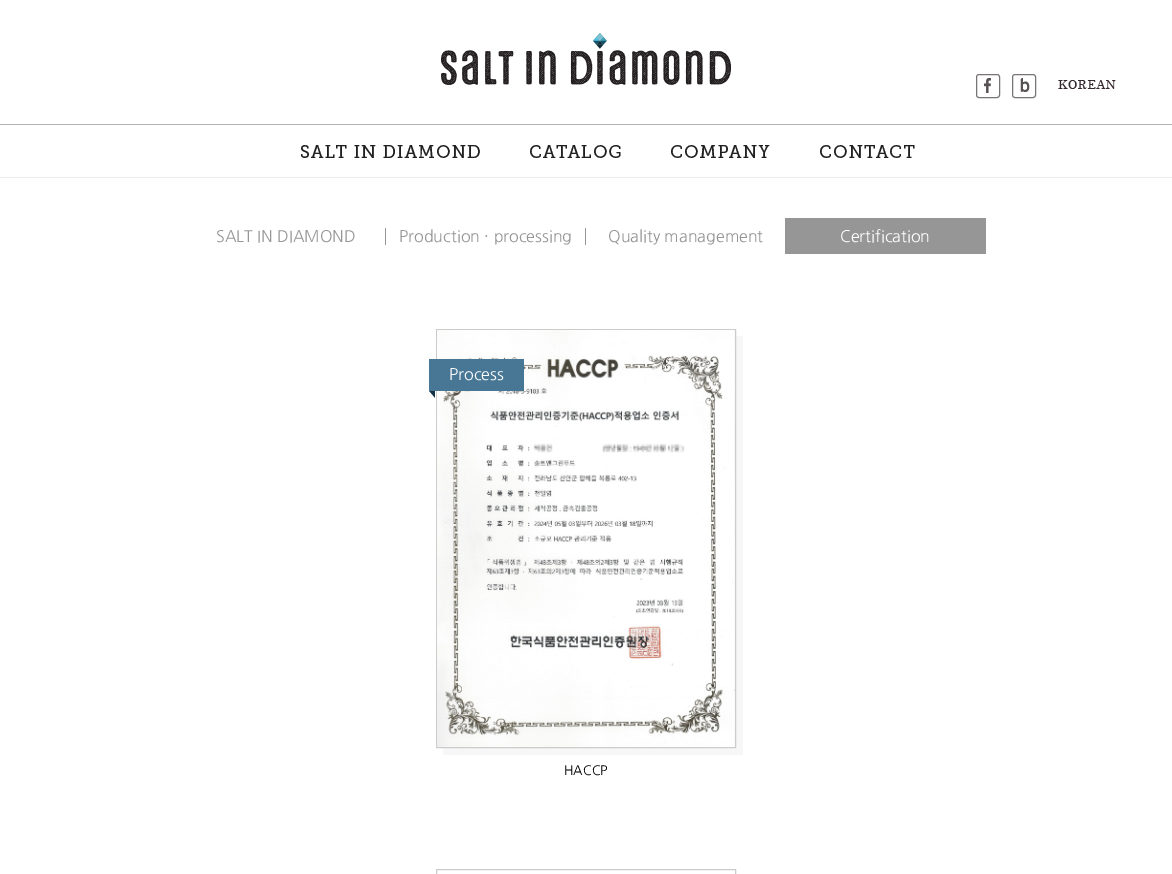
%!PS
<< /PageSize [1172 874] >> setpagedevice
/mt/moveto load def
/li/lineto load def
/cp/closepath load def
/fl/fill load def
/st/stroke load def
/co { dup -16 bitshift 255 div exch dup -8 bitshift 255 and 255 div exch 255 and 255 div setrgbcolor } def
/fn { [ exch dup neg 0 0 3 -1 roll 0 0 ] selectfont } def
/tx { co fn moveto show } def
/bx { co rectfill } def
/rr { 5 dict begin { /r /h /w /y /x } { exch def } forall
  x r add y moveto x w add y 2 copy h add r arct x w add y h add x 1 index r arct
  x y h add x y r arct x y 2 copy exch w add exch r arct closepath end } def
/im { 5 dict begin { /h /w /y /x /name } { exch def } forall
  gsave x y translate w h scale
  w h 8 [w 0 0 h 0 0] name (r) file false 3 colorimage grestore end } def
0 874 translate 1 -1 scale
4 setmiterlimit
0 0 1172 874 16#FFFFFF bx
(media/1.raw) 441 33 290 52 im
(media/2.raw) 984 78 7 15 im
16#797476 co
976.5 74.5 23 23 2.5 rr st
(media/3.raw) 1020 78 10 14 im
1012.5 74.5 23 23 2.5 rr st
(media/4.raw) 1058 80 58 9 im
0 124 1172 1 16#B7B2B4 bx
(media/5.raw) 301 145 179 13 im
(media/6.raw) 530 145 91 13 im
(media/7.raw) 671 145 99 13 im
(media/8.raw) 820 145 95 13 im
0 177 1172 1 16#ECECEC bx
385 228 1 17 16#969696 bx
585 228 1 17 16#969696 bx
785 218 201 36 16#969696 bx
16#F7F7F7 co
443 748 mt 443 755 li 743 755 li 743 336 li 736 336 li 736 748 li cp fl
16#CCCCCC co
436.5 329.5 299 418 rectstroke
(media/9.raw) 437 330 298 417 im
(media/10.raw) 429 359 95 39 im
436.5 869.5 299 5 rectstroke
(SALT IN DIAMOND) 216 242 /NanumGothic-Regular 16 16#969696 tx
(Production · processing) 399 242 /NanumGothic-Regular 16 16#969696 tx
(Quality management) 608 242 /NanumGothic-Regular 16 16#969696 tx
(Certification) 840 242 /NanumGothic-Regular 16 16#FFFFFF tx
(Process) 449 380 /NanumGothic-Regular 16 16#FFFFFF tx
(HACCP) 564 775 /NanumGothic-Regular 13 16#000000 tx
showpage
